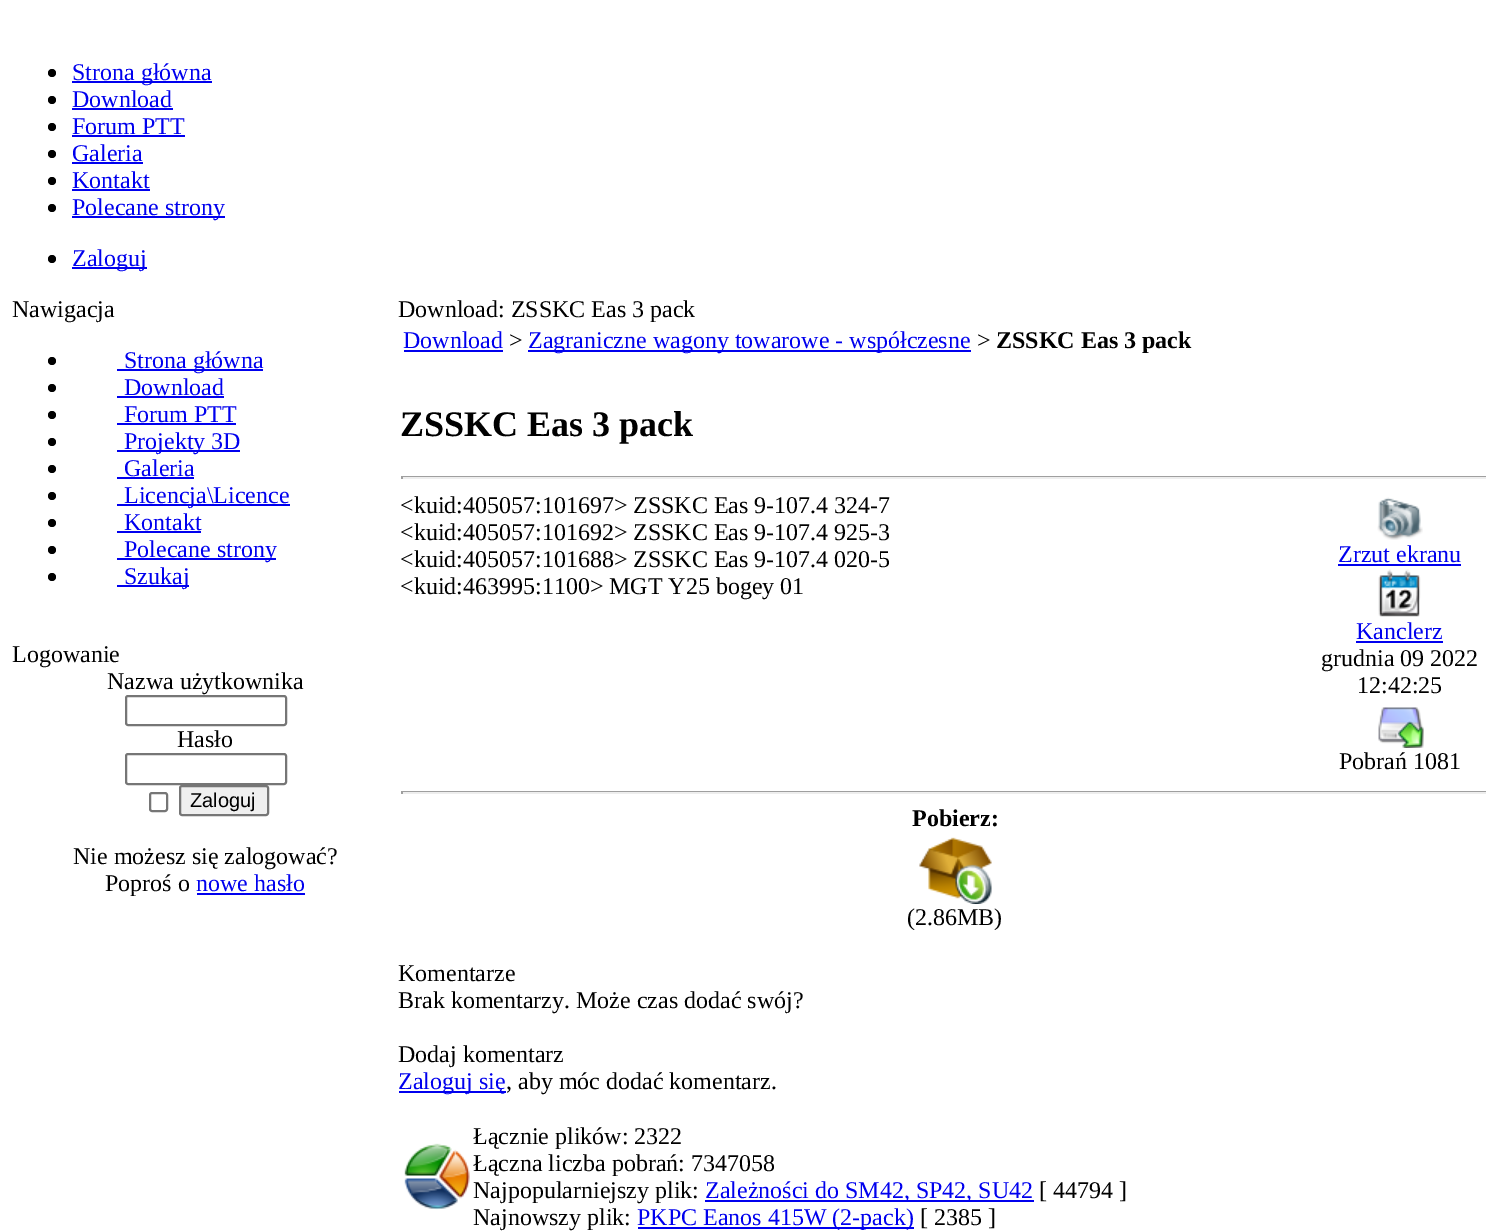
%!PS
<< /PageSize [1486 1231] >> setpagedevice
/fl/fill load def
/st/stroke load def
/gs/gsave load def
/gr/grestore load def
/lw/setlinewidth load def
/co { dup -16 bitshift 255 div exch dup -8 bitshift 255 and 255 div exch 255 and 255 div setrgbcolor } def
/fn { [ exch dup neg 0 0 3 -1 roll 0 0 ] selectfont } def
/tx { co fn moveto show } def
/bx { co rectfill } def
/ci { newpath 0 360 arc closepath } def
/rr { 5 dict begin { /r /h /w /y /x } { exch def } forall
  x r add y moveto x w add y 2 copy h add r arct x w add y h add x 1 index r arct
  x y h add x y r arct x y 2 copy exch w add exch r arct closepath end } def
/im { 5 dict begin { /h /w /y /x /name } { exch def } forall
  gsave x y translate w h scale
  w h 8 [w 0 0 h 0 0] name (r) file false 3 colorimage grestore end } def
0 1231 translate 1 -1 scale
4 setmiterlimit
0 0 1486 1231 16#FFFFFF bx
16#000000 co
52 73 4 ci fl
72 81 140 2 16#0000EE bx
16#000000 co
52 100 4 ci fl
72 108 101 2 16#0000EE bx
16#000000 co
52 127 4 ci fl
72 135 113 2 16#0000EE bx
16#000000 co
52 154 4 ci fl
72 162 71 2 16#0000EE bx
16#000000 co
52 181 4 ci fl
72 189 78 2 16#0000EE bx
16#000000 co
52 208 4 ci fl
72 216 153 2 16#0000EE bx
16#000000 co
52 259 4 ci fl
72 267 75 2 16#0000EE bx
16#000000 co
52 361 4 ci fl
117 369 146 2 16#0000EE bx
16#000000 co
52 388 4 ci fl
117 396 107 2 16#0000EE bx
16#000000 co
52 415 4 ci fl
117 423 119 2 16#0000EE bx
16#000000 co
52 442 4 ci fl
117 450 123 2 16#0000EE bx
16#000000 co
52 469 4 ci fl
117 477 77 2 16#0000EE bx
16#000000 co
52 496 4 ci fl
117 504 173 2 16#0000EE bx
16#000000 co
52 523 4 ci fl
117 531 84 2 16#0000EE bx
16#000000 co
52 550 4 ci fl
117 558 159 2 16#0000EE bx
16#000000 co
52 577 4 ci fl
117 585 72 2 16#0000EE bx
16#767676 co
2 lw
126 696 160 29 2 rr st
126 754 160 30 2 rr st
150 793 17 18 2 rr st
16#EFEFEF co
180 786 88 29 2 rr gs fl gr
16#767676 co
st
197 893 108 2 16#0000EE bx
404 350 99 2 16#0000EE bx
528 350 443 2 16#0000EE bx
401 476 1085 1 16#9F9F9F bx
401 477 1085 2 16#EEEEEE bx
401 476 2 3 16#9F9F9F bx
(media/1.raw) 1377 497 46 43 im
1338 564 123 2 16#0000EE bx
(media/2.raw) 1378 569 43 48 im
1356 641 87 2 16#0000EE bx
(media/3.raw) 1378 707 46 41 im
401 791 1085 1 16#9F9F9F bx
401 792 1085 2 16#EEEEEE bx
401 791 2 3 16#9F9F9F bx
(media/4.raw) 919 837 73 67 im
399 1091 107 2 16#0000EE bx
(media/5.raw) 404 1143 66 67 im
705 1200 329 2 16#0000EE bx
638 1227 276 2 16#0000EE bx
(Strona główna) 72 80 /LiberationSerif-Regular 24 16#0000EE tx
(Download) 72 107 /LiberationSerif-Regular 24 16#0000EE tx
(Forum PTT) 72 134 /LiberationSerif-Regular 24 16#0000EE tx
(Galeria) 72 161 /LiberationSerif-Regular 24 16#0000EE tx
(Kontakt) 72 188 /LiberationSerif-Regular 24 16#0000EE tx
(Polecane strony) 72 215 /LiberationSerif-Regular 24 16#0000EE tx
(Zaloguj) 72 266 /LiberationSerif-Regular 24 16#0000EE tx
(Nawigacja) 12 317 /LiberationSerif-Regular 24 16#000000 tx
(Strona główna) 124 368 /LiberationSerif-Regular 24 16#0000EE tx
(Download) 124 395 /LiberationSerif-Regular 24 16#0000EE tx
(Forum PTT) 124 422 /LiberationSerif-Regular 24 16#0000EE tx
(Projekty 3D) 124 449 /LiberationSerif-Regular 24 16#0000EE tx
(Galeria) 124 476 /LiberationSerif-Regular 24 16#0000EE tx
(Licencja\\Licence) 124 503 /LiberationSerif-Regular 24 16#0000EE tx
(Kontakt) 124 530 /LiberationSerif-Regular 24 16#0000EE tx
(Polecane strony) 124 557 /LiberationSerif-Regular 24 16#0000EE tx
(Szukaj) 124 584 /LiberationSerif-Regular 24 16#0000EE tx
(Logowanie) 12 662 /LiberationSerif-Regular 24 16#000000 tx
(Nazwa użytkownika) 107 689 /LiberationSerif-Regular 24 16#000000 tx
(Hasło) 177 747 /LiberationSerif-Regular 24 16#000000 tx
(Zaloguj) 190 807 /LiberationSans-Regular 20 16#000000 tx
(Nie możesz się zalogować?) 73 864 /LiberationSerif-Regular 24 16#000000 tx
(Poproś o) 105 891 /LiberationSerif-Regular 24 16#000000 tx
(nowe hasło) 196 891 /LiberationSerif-Regular 24 16#0000EE tx
(Download: ZSSKC Eas 3 pack) 398 317 /LiberationSerif-Regular 24 16#000000 tx
(Download) 403 348 /LiberationSerif-Regular 24 16#0000EE tx
(>) 509 348 /LiberationSerif-Regular 24 16#000000 tx
(Zagraniczne wagony towarowe - współczesne) 528 348 /LiberationSerif-Regular 24 16#0000EE tx
(>) 977 348 /LiberationSerif-Regular 24 16#000000 tx
(ZSSKC Eas 3 pack) 996 348 /LiberationSerif-Bold 24 16#000000 tx
(ZSSKC Eas 3 pack) 400 436 /LiberationSerif-Bold 36 16#000000 tx
(<kuid:405057:101697> ZSSKC Eas 9-107.4 324-7) 400 513 /LiberationSerif-Regular 24 16#000000 tx
(<kuid:405057:101692> ZSSKC Eas 9-107.4 925-3) 400 540 /LiberationSerif-Regular 24 16#000000 tx
(<kuid:405057:101688> ZSSKC Eas 9-107.4 020-5) 400 567 /LiberationSerif-Regular 24 16#000000 tx
(<kuid:463995:1100> MGT Y25 bogey 01) 400 594 /LiberationSerif-Regular 24 16#000000 tx
(Zrzut ekranu) 1338 562 /LiberationSerif-Regular 24 16#0000EE tx
(Kanclerz) 1356 639 /LiberationSerif-Regular 24 16#0000EE tx
(grudnia 09 2022) 1321 666 /LiberationSerif-Regular 24 16#000000 tx
(12:42:25) 1357 693 /LiberationSerif-Regular 24 16#000000 tx
(Pobrań 1081) 1339 769 /LiberationSerif-Regular 24 16#000000 tx
(Pobierz:) 912 826 /LiberationSerif-Bold 24 16#000000 tx
(\(2.86MB\)) 907 925 /LiberationSerif-Regular 24 16#000000 tx
(Komentarze) 398 981 /LiberationSerif-Regular 24 16#000000 tx
(Brak komentarzy. Może czas dodać swój?) 398 1008 /LiberationSerif-Regular 24 16#000000 tx
(Dodaj komentarz) 398 1062 /LiberationSerif-Regular 24 16#000000 tx
(Zaloguj się) 398 1089 /LiberationSerif-Regular 24 16#0000EE tx
(, aby móc dodać komentarz.) 506 1089 /LiberationSerif-Regular 24 16#000000 tx
(Łącznie plików: 2322) 473 1144 /LiberationSerif-Regular 24 16#000000 tx
(Łączna liczba pobrań: 7347058) 473 1171 /LiberationSerif-Regular 24 16#000000 tx
(Najpopularniejszy plik:) 473 1198 /LiberationSerif-Regular 24 16#000000 tx
(Zależności do SM42, SP42, SU42) 705 1198 /LiberationSerif-Regular 24 16#0000EE tx
([ 44794 ]) 1039 1198 /LiberationSerif-Regular 24 16#000000 tx
(Najnowszy plik:) 473 1225 /LiberationSerif-Regular 24 16#000000 tx
(PKPC Eanos 415W \(2-pack\)) 637 1225 /LiberationSerif-Regular 24 16#0000EE tx
([ 2385 ]) 920 1225 /LiberationSerif-Regular 24 16#000000 tx
showpage
